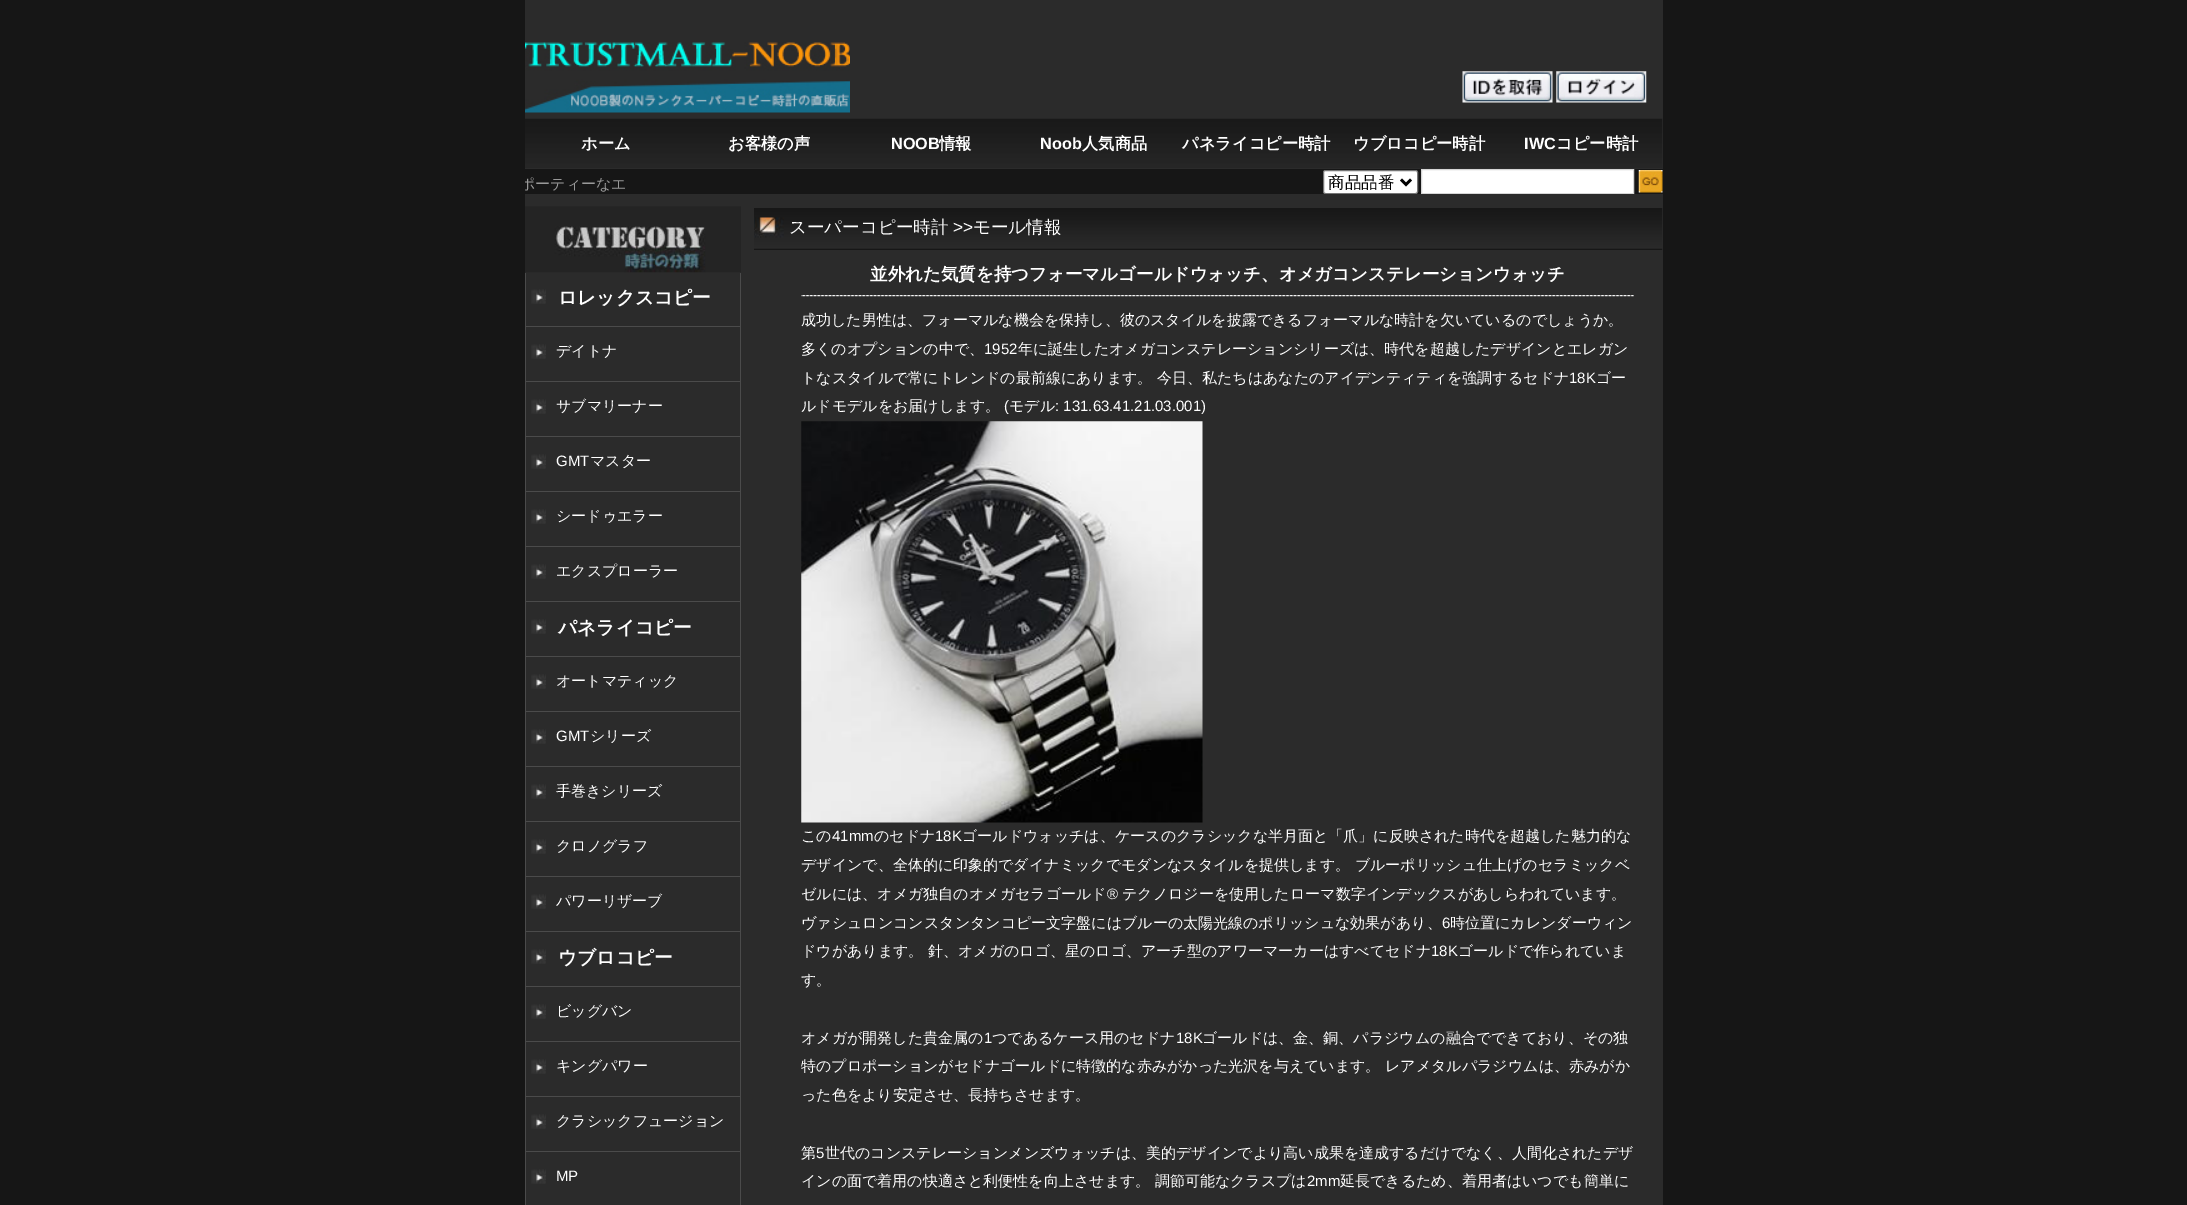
%!PS
<< /PageSize [2187 1205] >> setpagedevice
/mt/moveto load def
/li/lineto load def
/cp/closepath load def
/fl/fill load def
/st/stroke load def
/gs/gsave load def
/gr/grestore load def
/lw/setlinewidth load def
/co { dup -16 bitshift 255 div exch dup -8 bitshift 255 and 255 div exch 255 and 255 div setrgbcolor } def
/fn { [ exch dup neg 0 0 3 -1 roll 0 0 ] selectfont } def
/tx { co fn moveto show } def
/bx { co rectfill } def
/rr { 5 dict begin { /r /h /w /y /x } { exch def } forall
  x r add y moveto x w add y 2 copy h add r arct x w add y h add x 1 index r arct
  x y h add x y r arct x y 2 copy exch w add exch r arct closepath end } def
/im { 5 dict begin { /h /w /y /x /name } { exch def } forall
  gsave x y translate w h scale
  w h 8 [w 0 0 h 0 0] name (r) file false 3 colorimage grestore end } def
0 1205 translate 1 -1 scale
4 setmiterlimit
0 0 2187 1205 16#161616 bx
525 0 1138 169 16#2B2B2B bx
(media/1.raw) 525 42 325 71 im
(media/2.raw) 1462 71 91 32 im
(media/3.raw) 1556 71 91 32 im
(media/4.raw) 525 118 1138 50 im
16#FFFFFF co
1323.5 170.5 94 23 2 rr gs fl gr
16#767676 co
st
16#000000 co
2.5 lw
1401 179.5 mt 1406 184.5 li 1411 179.5 li st
16#FFFFFF co
1421.5 169.5 mt 1633.5 169.5 li 1633.5 193.5 li 1421.5 193.5 li cp gs fl gr
16#D6D6D6 co
1 lw
st
(media/5.raw) 1638 170 25 23 im
525 194 1138 1011 16#2B2B2B bx
(media/6.raw) 525 206 216 67 im
(media/7.raw) 531 289 15 15 im
740 273 1 932 16#4B4B4B bx
525 326 216 1 16#4B4B4B bx
525 273 1 55 16#4B4B4B bx
(media/7.raw) 531 344 15 15 im
525 381 216 1 16#4B4B4B bx
525 328 1 55 16#4B4B4B bx
(media/7.raw) 531 399 15 15 im
525 436 216 1 16#4B4B4B bx
525 383 1 55 16#4B4B4B bx
(media/7.raw) 531 454 15 15 im
525 491 216 1 16#4B4B4B bx
525 438 1 55 16#4B4B4B bx
(media/7.raw) 531 509 15 15 im
525 546 216 1 16#4B4B4B bx
525 493 1 55 16#4B4B4B bx
(media/7.raw) 531 564 15 15 im
525 601 216 1 16#4B4B4B bx
525 548 1 55 16#4B4B4B bx
(media/7.raw) 531 619 15 15 im
525 656 216 1 16#4B4B4B bx
525 603 1 55 16#4B4B4B bx
(media/7.raw) 531 674 15 15 im
525 711 216 1 16#4B4B4B bx
525 658 1 55 16#4B4B4B bx
(media/7.raw) 531 729 15 15 im
525 766 216 1 16#4B4B4B bx
525 713 1 55 16#4B4B4B bx
(media/7.raw) 531 784 15 15 im
525 821 216 1 16#4B4B4B bx
525 768 1 55 16#4B4B4B bx
(media/7.raw) 531 839 15 15 im
525 876 216 1 16#4B4B4B bx
525 823 1 55 16#4B4B4B bx
(media/7.raw) 531 894 15 15 im
525 931 216 1 16#4B4B4B bx
525 878 1 55 16#4B4B4B bx
(media/7.raw) 531 949 15 15 im
525 986 216 1 16#4B4B4B bx
525 933 1 55 16#4B4B4B bx
(media/7.raw) 531 1004 15 15 im
525 1041 216 1 16#4B4B4B bx
525 988 1 55 16#4B4B4B bx
(media/7.raw) 531 1059 15 15 im
525 1096 216 1 16#4B4B4B bx
525 1043 1 55 16#4B4B4B bx
(media/7.raw) 531 1114 15 15 im
525 1151 216 1 16#4B4B4B bx
525 1098 1 107 16#4B4B4B bx
(media/8.raw) 531 1169 15 15 im
(media/9.raw) 754 208 909 42 im
(media/10.raw) 801 295 833 2 im
(media/11.raw) 801 421 402 402 im
(ホーム) 581 149 /WenQuanYiZenHei-Bold 16.25 16#FFFFFF tx
(お客様の声) 728 149 /WenQuanYiZenHei-Bold 16.25 16#FFFFFF tx
(NOOB) 891 149 /LiberationSans-Bold 16.25 16#FFFFFF tx
(情報) 939 149 /WenQuanYiZenHei-Bold 16.25 16#FFFFFF tx
(Noob) 1040 149 /LiberationSans-Bold 16.25 16#FFFFFF tx
(人気商品) 1082 149 /WenQuanYiZenHei-Bold 16.25 16#FFFFFF tx
(パネライコピー時計) 1182 149 /WenQuanYiZenHei-Bold 16.25 16#FFFFFF tx
(ウブロコピー時計) 1353 149 /WenQuanYiZenHei-Bold 16.25 16#FFFFFF tx
(IWC) 1524 149 /LiberationSans-Bold 16.25 16#FFFFFF tx
(コピー時計) 1556 149 /WenQuanYiZenHei-Bold 16.25 16#FFFFFF tx
gs
525 169 100 25 rectclip
(ポーティーなエ) 520 189 /WenQuanYiZenHei-Medium 15 16#999999 tx
gr
(商品品番) 1328 188 /WenQuanYiZenHei-Medium 16.5 16#000000 tx
(ロレックスコピー) 558 304 /WenQuanYiZenHei-Bold 18.75 16#FFFFFF tx
(デイトナ) 556 356 /WenQuanYiZenHei-Medium 15 16#FFFFFF tx
(サブマリーナー) 556 411 /WenQuanYiZenHei-Medium 15 16#FFFFFF tx
(GMT) 556 466 /LiberationSans-Regular 15 16#FFFFFF tx
(マスター) 590 466 /WenQuanYiZenHei-Medium 15 16#FFFFFF tx
(シードゥエラー) 556 521 /WenQuanYiZenHei-Medium 15 16#FFFFFF tx
(エクスプローラー) 556 576 /WenQuanYiZenHei-Medium 15 16#FFFFFF tx
(パネライコピー) 558 634 /WenQuanYiZenHei-Bold 18.75 16#FFFFFF tx
(オートマティック) 556 686 /WenQuanYiZenHei-Medium 15 16#FFFFFF tx
(GMT) 556 741 /LiberationSans-Regular 15 16#FFFFFF tx
(シリーズ) 590 741 /WenQuanYiZenHei-Medium 15 16#FFFFFF tx
(手巻きシリーズ) 556 796 /WenQuanYiZenHei-Medium 15 16#FFFFFF tx
(クロノグラフ) 556 851 /WenQuanYiZenHei-Medium 15 16#FFFFFF tx
(パワーリザーブ) 556 906 /WenQuanYiZenHei-Medium 15 16#FFFFFF tx
(ウブロコピー) 558 964 /WenQuanYiZenHei-Bold 18.75 16#FFFFFF tx
(ビッグバン) 556 1016 /WenQuanYiZenHei-Medium 15 16#FFFFFF tx
(キングパワー) 556 1071 /WenQuanYiZenHei-Medium 15 16#FFFFFF tx
(クラシックフュージョン) 556 1126 /WenQuanYiZenHei-Medium 15 16#FFFFFF tx
(MP) 556 1181 /LiberationSans-Regular 15 16#FFFFFF tx
(スーパーコピー時計) 789 233 /WenQuanYiZenHei-Medium 17.5 16#FFFFFF tx
(>>) 953 233 /LiberationSans-Regular 17.5 16#FFFFFF tx
(モール情報) 973 233 /WenQuanYiZenHei-Medium 17.5 16#FFFFFF tx
(並外れた気質を持つフォーマルゴールドウォッチ、オメガコンステレーションウォッチ) 870 280 /WenQuanYiZenHei-Bold 17.5 16#FFFFFF tx
(成功した男性は、フォーマルな機会を保持し、彼のスタイルを披露できるフォーマルな時計を欠いているのでしょうか。) 801 325 /WenQuanYiZenHei-Medium 15 16#FFFFFF tx
(多くのオプションの中で、) 801 354 /WenQuanYiZenHei-Medium 15 16#FFFFFF tx
(1952) 984 354 /LiberationSans-Regular 15 16#FFFFFF tx
(年に誕生したオメガコンステレーションシリーズは、時代を超越したデザインとエレガン) 1018 354 /WenQuanYiZenHei-Medium 15 16#FFFFFF tx
(トなスタイルで常にトレンドの最前線にあります。 今日、私たちはあなたのアイデンティティを強調するセドナ) 801 383 /WenQuanYiZenHei-Medium 15 16#FFFFFF tx
(18K) 1569 383 /LiberationSans-Regular 15 16#FFFFFF tx
(ゴー) 1596 383 /WenQuanYiZenHei-Medium 15 16#FFFFFF tx
(ルドモデルをお届けします。) 801 411 /WenQuanYiZenHei-Medium 15 16#FFFFFF tx
(\() 1004 411 /LiberationSans-Regular 15 16#FFFFFF tx
(モデル) 1009 411 /WenQuanYiZenHei-Medium 15 16#FFFFFF tx
(: 131.63.41.21.03.001\)) 1055 411 /LiberationSans-Regular 15 16#FFFFFF tx
(この) 801 841 /WenQuanYiZenHei-Medium 15 16#FFFFFF tx
(41mm) 832 841 /LiberationSans-Regular 15 16#FFFFFF tx
(のセドナ) 874 841 /WenQuanYiZenHei-Medium 15 16#FFFFFF tx
(18K) 935 841 /LiberationSans-Regular 15 16#FFFFFF tx
(ゴールドウォッチは、ケースのクラシックな半月面と「爪」に反映された時代を超越した魅力的な) 962 841 /WenQuanYiZenHei-Medium 15 16#FFFFFF tx
(デザインで、全体的に印象的でダイナミックでモダンなスタイルを提供します。 ブルーポリッシュ仕上げのセラミックベ) 801 870 /WenQuanYiZenHei-Medium 15 16#FFFFFF tx
(ゼルには、オメガ独自のオメガセラゴールド) 801 899 /WenQuanYiZenHei-Medium 15 16#FFFFFF tx
(®) 1107 899 /LiberationSans-Regular 15 16#FFFFFF tx
(テクノロジーを使用したローマ数字インデックスがあしらわれています。) 1122 899 /WenQuanYiZenHei-Medium 15 16#FFFFFF tx
(ヴァシュロンコンスタンタンコピー文字盤にはブルーの太陽光線のポリッシュな効果があり、) 801 928 /WenQuanYiZenHei-Medium 15 16#FFFFFF tx
(6) 1442 928 /LiberationSans-Regular 15 16#FFFFFF tx
(時位置にカレンダーウィン) 1450 928 /WenQuanYiZenHei-Medium 15 16#FFFFFF tx
(ドウがあります。 針、オメガのロゴ、星のロゴ、アーチ型のアワーマーカーはすべてセドナ) 801 956 /WenQuanYiZenHei-Medium 15 16#FFFFFF tx
(18K) 1431 956 /LiberationSans-Regular 15 16#FFFFFF tx
(ゴールドで作られていま) 1458 956 /WenQuanYiZenHei-Medium 15 16#FFFFFF tx
(す。) 801 985 /WenQuanYiZenHei-Medium 15 16#FFFFFF tx
(オメガが開発した貴金属の) 801 1043 /WenQuanYiZenHei-Medium 15 16#FFFFFF tx
(1) 984 1043 /LiberationSans-Regular 15 16#FFFFFF tx
(つであるケース用のセドナ) 992 1043 /WenQuanYiZenHei-Medium 15 16#FFFFFF tx
(18K) 1176 1043 /LiberationSans-Regular 15 16#FFFFFF tx
(ゴールドは、金、銅、パラジウムの融合でできており、その独) 1202 1043 /WenQuanYiZenHei-Medium 15 16#FFFFFF tx
(特のプロポーションがセドナゴールドに特徴的な赤みがかった光沢を与えています。 レアメタルパラジウムは、赤みがか) 801 1071 /WenQuanYiZenHei-Medium 15 16#FFFFFF tx
(った色をより安定させ、長持ちさせます。) 801 1100 /WenQuanYiZenHei-Medium 15 16#FFFFFF tx
(第) 801 1158 /WenQuanYiZenHei-Medium 15 16#FFFFFF tx
(5) 816 1158 /LiberationSans-Regular 15 16#FFFFFF tx
(世代のコンステレーションメンズウォッチは、美的デザインでより高い成果を達成するだけでなく、人間化されたデザ) 825 1158 /WenQuanYiZenHei-Medium 15 16#FFFFFF tx
(インの面で着用の快適さと利便性を向上させます。 調節可能なクラスプは) 801 1186 /WenQuanYiZenHei-Medium 15 16#FFFFFF tx
(2mm) 1307 1186 /LiberationSans-Regular 15 16#FFFFFF tx
(延長できるため、着用者はいつでも簡単に) 1340 1186 /WenQuanYiZenHei-Medium 15 16#FFFFFF tx
showpage
